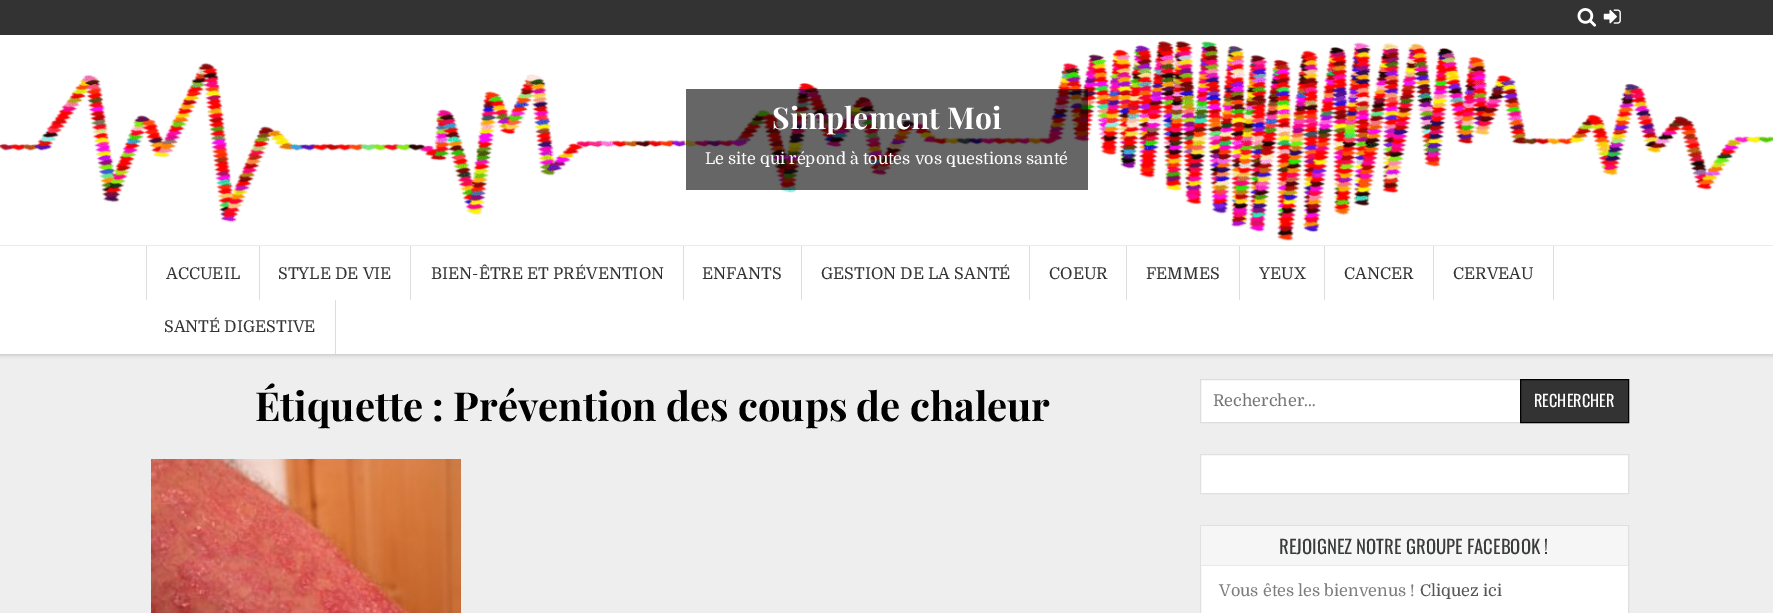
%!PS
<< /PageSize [1773 613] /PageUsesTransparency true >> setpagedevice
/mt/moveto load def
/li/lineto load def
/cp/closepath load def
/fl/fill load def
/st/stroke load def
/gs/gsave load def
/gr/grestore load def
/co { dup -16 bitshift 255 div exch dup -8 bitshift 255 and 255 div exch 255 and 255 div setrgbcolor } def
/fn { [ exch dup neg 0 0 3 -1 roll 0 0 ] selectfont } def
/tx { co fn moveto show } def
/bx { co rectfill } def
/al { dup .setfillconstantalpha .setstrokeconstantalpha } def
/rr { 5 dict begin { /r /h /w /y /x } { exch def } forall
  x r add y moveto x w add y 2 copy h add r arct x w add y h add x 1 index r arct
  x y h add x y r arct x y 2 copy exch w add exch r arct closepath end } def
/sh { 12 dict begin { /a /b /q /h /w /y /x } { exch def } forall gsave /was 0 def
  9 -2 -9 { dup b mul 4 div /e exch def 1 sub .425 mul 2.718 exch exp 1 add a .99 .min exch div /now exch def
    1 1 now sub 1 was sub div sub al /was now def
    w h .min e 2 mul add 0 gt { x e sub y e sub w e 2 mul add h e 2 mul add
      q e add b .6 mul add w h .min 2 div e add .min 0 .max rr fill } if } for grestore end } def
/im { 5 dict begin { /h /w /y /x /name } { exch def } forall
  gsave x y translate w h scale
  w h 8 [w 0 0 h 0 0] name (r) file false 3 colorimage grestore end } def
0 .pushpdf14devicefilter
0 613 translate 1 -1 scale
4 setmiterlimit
0 0 1773 613 16#EEEEEE bx
0 0 1773 35 16#333333 bx
(media/1.raw) 1577 8 20 19 im
(media/2.raw) 1603 9 18 15 im
16#000000 co
0 248 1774 107 0 2 .2 sh
0 35 1773 210 16#FFFFFF bx
0 245 1773 1 16#EBEBEC bx
(media/3.raw) 0 40 1773 201 im
0.6 al
686 89 402 101 16#000000 bx
1 al
16#D2D2D3 co
0 354 mt 0 355 li 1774 355 li 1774 248 li 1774 354 li cp fl
0 246 1773 108 16#FFFFFF bx
259 246 1 54 16#DDDDDD bx
146 246 1 54 16#DDDDDD bx
410 246 1 54 16#DDDDDD bx
683 246 1 54 16#DDDDDD bx
801 246 1 54 16#DDDDDD bx
1029 246 1 54 16#DDDDDD bx
1126 246 1 54 16#DDDDDD bx
1239 246 1 54 16#DDDDDD bx
1324 246 1 54 16#DDDDDD bx
1433 246 1 54 16#DDDDDD bx
1553 246 1 54 16#DDDDDD bx
335 300 1 54 16#DDDDDD bx
(media/4.raw) 151 459 310 154 im
(media/5.raw) 159 465 237 147 im
1201 380 319 42 16#FFFFFF bx
16#DDDDDD co
1200.5 379.5 428 43 rectstroke
16#333333 co
1520.5 379.5 mt 1628.5 379.5 li 1628.5 422.5 li 1520.5 422.5 li cp gs fl gr
16#000000 co
st
16#FFFFFF co
1200.5 454.5 mt 1628.5 454.5 li 1628.5 493.5 li 1200.5 493.5 li cp gs fl gr
16#E0E0E0 co
st
1201 566 427 47 16#FFFFFF bx
16#E0E0E0 co
1200.5 525.5 428 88 rectstroke
1201 526 427 39 16#F6F6F6 bx
1201 565 427 1 16#E9E9E9 bx
(Simplement Moi) 772 129 /PlayfairDisplay-Bold 30 16#FFFFFF tx
(Le site qui répond à toutes vos questions santé) 705 164 /Domine-Regular 16.25 16#FFFFFF tx
(ACCUEIL) 166 279 /Domine-Regular 16.25 16#333333 tx
(STYLE DE VIE) 278 279 /Domine-Regular 16.25 16#333333 tx
(BIEN-ÊTRE ET PRÉVENTION) 431 279 /Domine-Regular 16.25 16#333333 tx
(ENFANTS) 702 279 /Domine-Regular 16.25 16#333333 tx
(GESTION DE LA SANTÉ) 821 279 /Domine-Regular 16.25 16#333333 tx
(COEUR) 1049 279 /Domine-Regular 16.25 16#333333 tx
(FEMMES) 1146 279 /Domine-Regular 16.25 16#333333 tx
(YEUX) 1259 279 /Domine-Regular 16.25 16#333333 tx
(CANCER) 1344 279 /Domine-Regular 16.25 16#333333 tx
(CERVEAU) 1453 279 /Domine-Regular 16.25 16#333333 tx
(SANTÉ DIGESTIVE) 164 332 /Domine-Regular 16.25 16#333333 tx
(Étiquette : Prévention des coups de chaleur) 255 421 /PlayfairDisplay-Bold 40 16#000000 tx
(Rechercher…) 1213 406 /Domine-Regular 16.25 16#757575 tx
(RECHERCHER) 1534 407 /Oswald-Regular 16.25 16#FFFFFF tx
(REJOIGNEZ NOTRE GROUPE FACEBOOK !) 1279 554 /Oswald-Regular 18.75 16#3A3C3D tx
(Vous êtes les bienvenus !) 1219 596 /Domine-Regular 16.25 16#7B7D80 tx
(Cliquez ici) 1420 596 /Domine-Regular 16.25 16#555555 tx
.poppdf14devicefilter showpage
